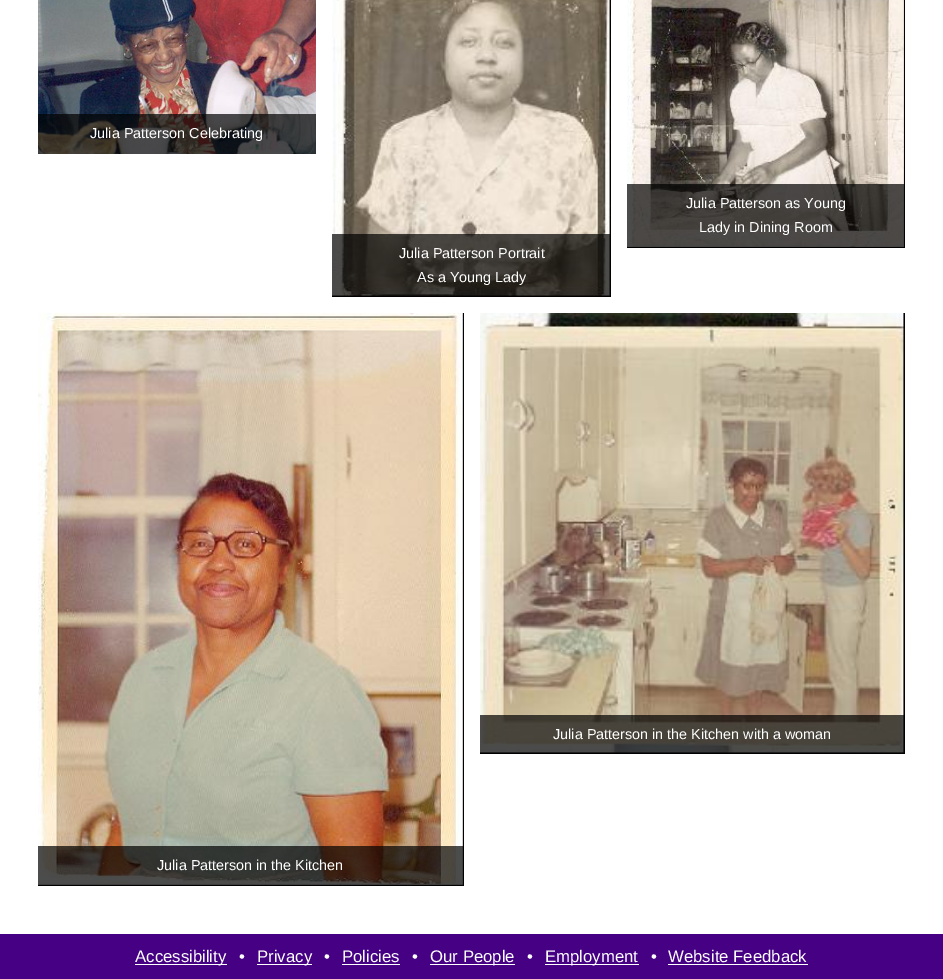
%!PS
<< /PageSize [943 979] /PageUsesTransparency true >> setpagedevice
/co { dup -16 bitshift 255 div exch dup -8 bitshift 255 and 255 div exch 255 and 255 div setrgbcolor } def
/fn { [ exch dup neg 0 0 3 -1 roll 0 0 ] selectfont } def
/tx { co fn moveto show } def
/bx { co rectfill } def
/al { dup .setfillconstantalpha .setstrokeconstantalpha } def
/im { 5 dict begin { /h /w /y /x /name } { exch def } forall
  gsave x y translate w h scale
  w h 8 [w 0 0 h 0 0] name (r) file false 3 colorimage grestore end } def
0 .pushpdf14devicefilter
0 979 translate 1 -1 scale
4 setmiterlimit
0 0 943 979 16#FFFFFF bx
(media/1.raw) 38 0 278 154 im
0.7 al
38 114 278 40 16#000000 bx
1 al
(media/2.raw) 627 0 278 248 im
0.7 al
627 184 278 64 16#000000 bx
1 al
(media/3.raw) 332 0 279 297 im
0.7 al
332 234 279 63 16#000000 bx
1 al
(media/4.raw) 480 313 425 441 im
0.7 al
480 715 425 39 16#000000 bx
1 al
(media/5.raw) 38 313 426 573 im
0.7 al
38 846 426 40 16#000000 bx
1 al
0 934 943 45 16#450084 bx
135 964 92 1 16#FFFFFF bx
257 964 55 1 16#FFFFFF bx
342 964 58 1 16#FFFFFF bx
430 964 85 1 16#FFFFFF bx
545 964 94 1 16#FFFFFF bx
668 964 140 1 16#FFFFFF bx
(Julia Patterson Celebrating) 90 138 /LiberationSans-Regular 14.4 16#FFFFFF tx
(Julia Patterson as Young) 686 208 /LiberationSans-Regular 14.4 16#FFFFFF tx
(Lady in Dining Room) 699 232 /LiberationSans-Regular 14.4 16#FFFFFF tx
(Julia Patterson Portrait) 399 258 /LiberationSans-Regular 14.4 16#FFFFFF tx
(As a Young Lady) 417 282 /LiberationSans-Regular 14.4 16#FFFFFF tx
(Julia Patterson in the Kitchen with a woman) 553 739 /LiberationSans-Regular 14.4 16#FFFFFF tx
(Julia Patterson in the Kitchen) 157 870 /LiberationSans-Regular 14.4 16#FFFFFF tx
(Accessibility) 135 962 /LiberationSans-Regular 16.75 16#FFFFFF tx
(•) 239 962 /LiberationSans-Regular 16.75 16#FFFFFF tx
(Privacy) 257 962 /LiberationSans-Regular 16.75 16#FFFFFF tx
(•) 324 962 /LiberationSans-Regular 16.75 16#FFFFFF tx
(Policies) 342 962 /LiberationSans-Regular 16.75 16#FFFFFF tx
(•) 412 962 /LiberationSans-Regular 16.75 16#FFFFFF tx
(Our People) 430 962 /LiberationSans-Regular 16.75 16#FFFFFF tx
(•) 527 962 /LiberationSans-Regular 16.75 16#FFFFFF tx
(Employment) 545 962 /LiberationSans-Regular 16.75 16#FFFFFF tx
(•) 651 962 /LiberationSans-Regular 16.75 16#FFFFFF tx
(Website Feedback) 668 962 /LiberationSans-Regular 16.75 16#FFFFFF tx
.poppdf14devicefilter showpage
